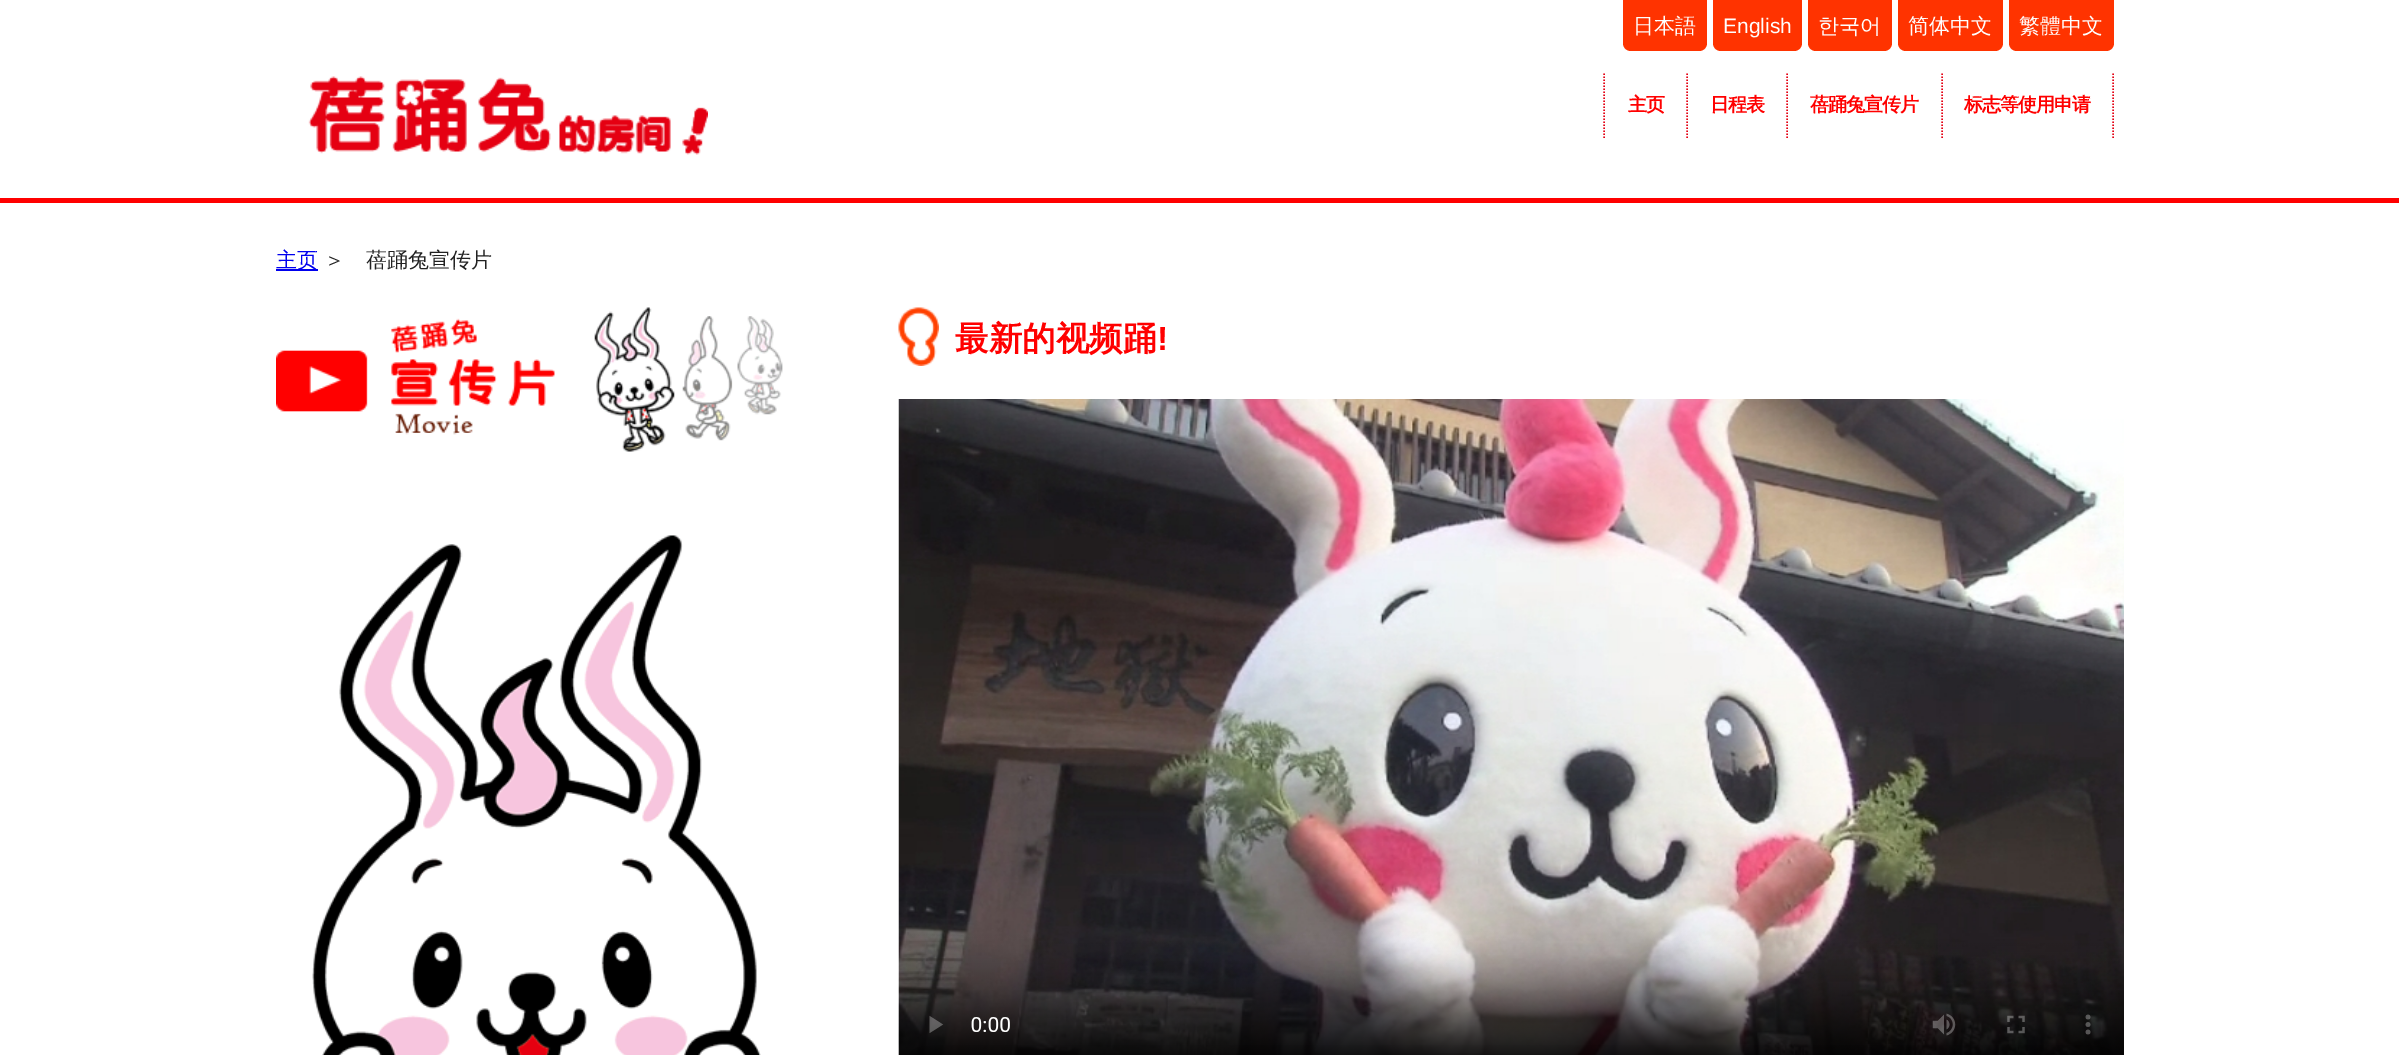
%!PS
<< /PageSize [2399 1055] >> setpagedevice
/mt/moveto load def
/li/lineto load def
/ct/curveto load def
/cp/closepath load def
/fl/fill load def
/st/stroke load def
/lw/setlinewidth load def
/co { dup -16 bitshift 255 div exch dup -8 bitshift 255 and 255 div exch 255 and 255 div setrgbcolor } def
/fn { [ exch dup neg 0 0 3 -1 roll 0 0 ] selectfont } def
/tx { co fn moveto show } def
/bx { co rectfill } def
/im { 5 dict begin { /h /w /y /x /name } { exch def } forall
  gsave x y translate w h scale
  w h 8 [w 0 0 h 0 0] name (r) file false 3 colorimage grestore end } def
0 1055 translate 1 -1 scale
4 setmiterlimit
0 0 2399 1055 16#FFFFFF bx
0 198 2399 5 16#FF0000 bx
16#FF3300 co
1623 0 mt 1707 0 li 1707 43 li 1707 47.5 1703.5 51 1699 51 ct 1631 51 li 1626.5 51 1623 47.5 1623 43 ct cp fl
1713 0 mt 1802 0 li 1802 43 li 1802 47.5 1798.5 51 1794 51 ct 1721 51 li 1716.5 51 1713 47.5 1713 43 ct cp fl
1808 0 mt 1892 0 li 1892 43 li 1892 47.5 1888.5 51 1884 51 ct 1816 51 li 1811.5 51 1808 47.5 1808 43 ct cp fl
1898 0 mt 2003 0 li 2003 43 li 2003 47.5 1999.5 51 1995 51 ct 1906 51 li 1901.5 51 1898 47.5 1898 43 ct cp fl
2009 0 mt 2114 0 li 2114 43 li 2114 47.5 2110.5 51 2106 51 ct 2017 51 li 2012.5 51 2009 47.5 2009 43 ct cp fl
(media/1.raw) 308 76 400 79 im
16#E40012 co
1.5 lw
[1.5 1.5] 0 setdash
1604 73.5 mt 1604 138 li st
1687 73.5 mt 1687 138 li st
1787 73.5 mt 1787 138 li st
1942 73.5 mt 1942 138 li st
2113 73.5 mt 2113 138 li st
276 269 42 2 16#0000EE bx
(media/2.raw) 276 307 507 145 im
(media/3.raw) 312 535 449 520 im
(media/4.raw) 898 307 41 59 im
(media/5.raw) 898 399 1226 656 im
(日本語) 1633 33 /WenQuanYiZenHei-Medium 21 16#FFFFFF tx
(English) 1723 33 /LiberationSans-Regular 21 16#FFFFFF tx
(한국어) 1818 33 /WenQuanYiZenHei-Medium 21 16#FFFFFF tx
(简体中文) 1908 33 /WenQuanYiZenHei-Medium 21 16#FFFFFF tx
(繁體中文) 2019 33 /WenQuanYiZenHei-Medium 21 16#FFFFFF tx
/WenQuanYiZenHei-Bold 19 fn
16#FF0000 co
1628 111 mt -1 0 (主页) ashow
1710 111 mt -1 0 (日程表) ashow
1810 111 mt -1 0 (蓓踊兔宣传片) ashow
1964 111 mt -1 0 (标志等使用申请) ashow
(主页) 276 267 /WenQuanYiZenHei-Medium 21 16#0000EE tx
(＞　蓓踊兔宣传片) 324 267 /WenQuanYiZenHei-Medium 21 16#222222 tx
(最新的视频踊) 955 350 /WenQuanYiZenHei-Bold 33.5 16#FF0000 tx
(!) 1157 350 /LiberationSans-Bold 33.5 16#FF0000 tx
showpage
